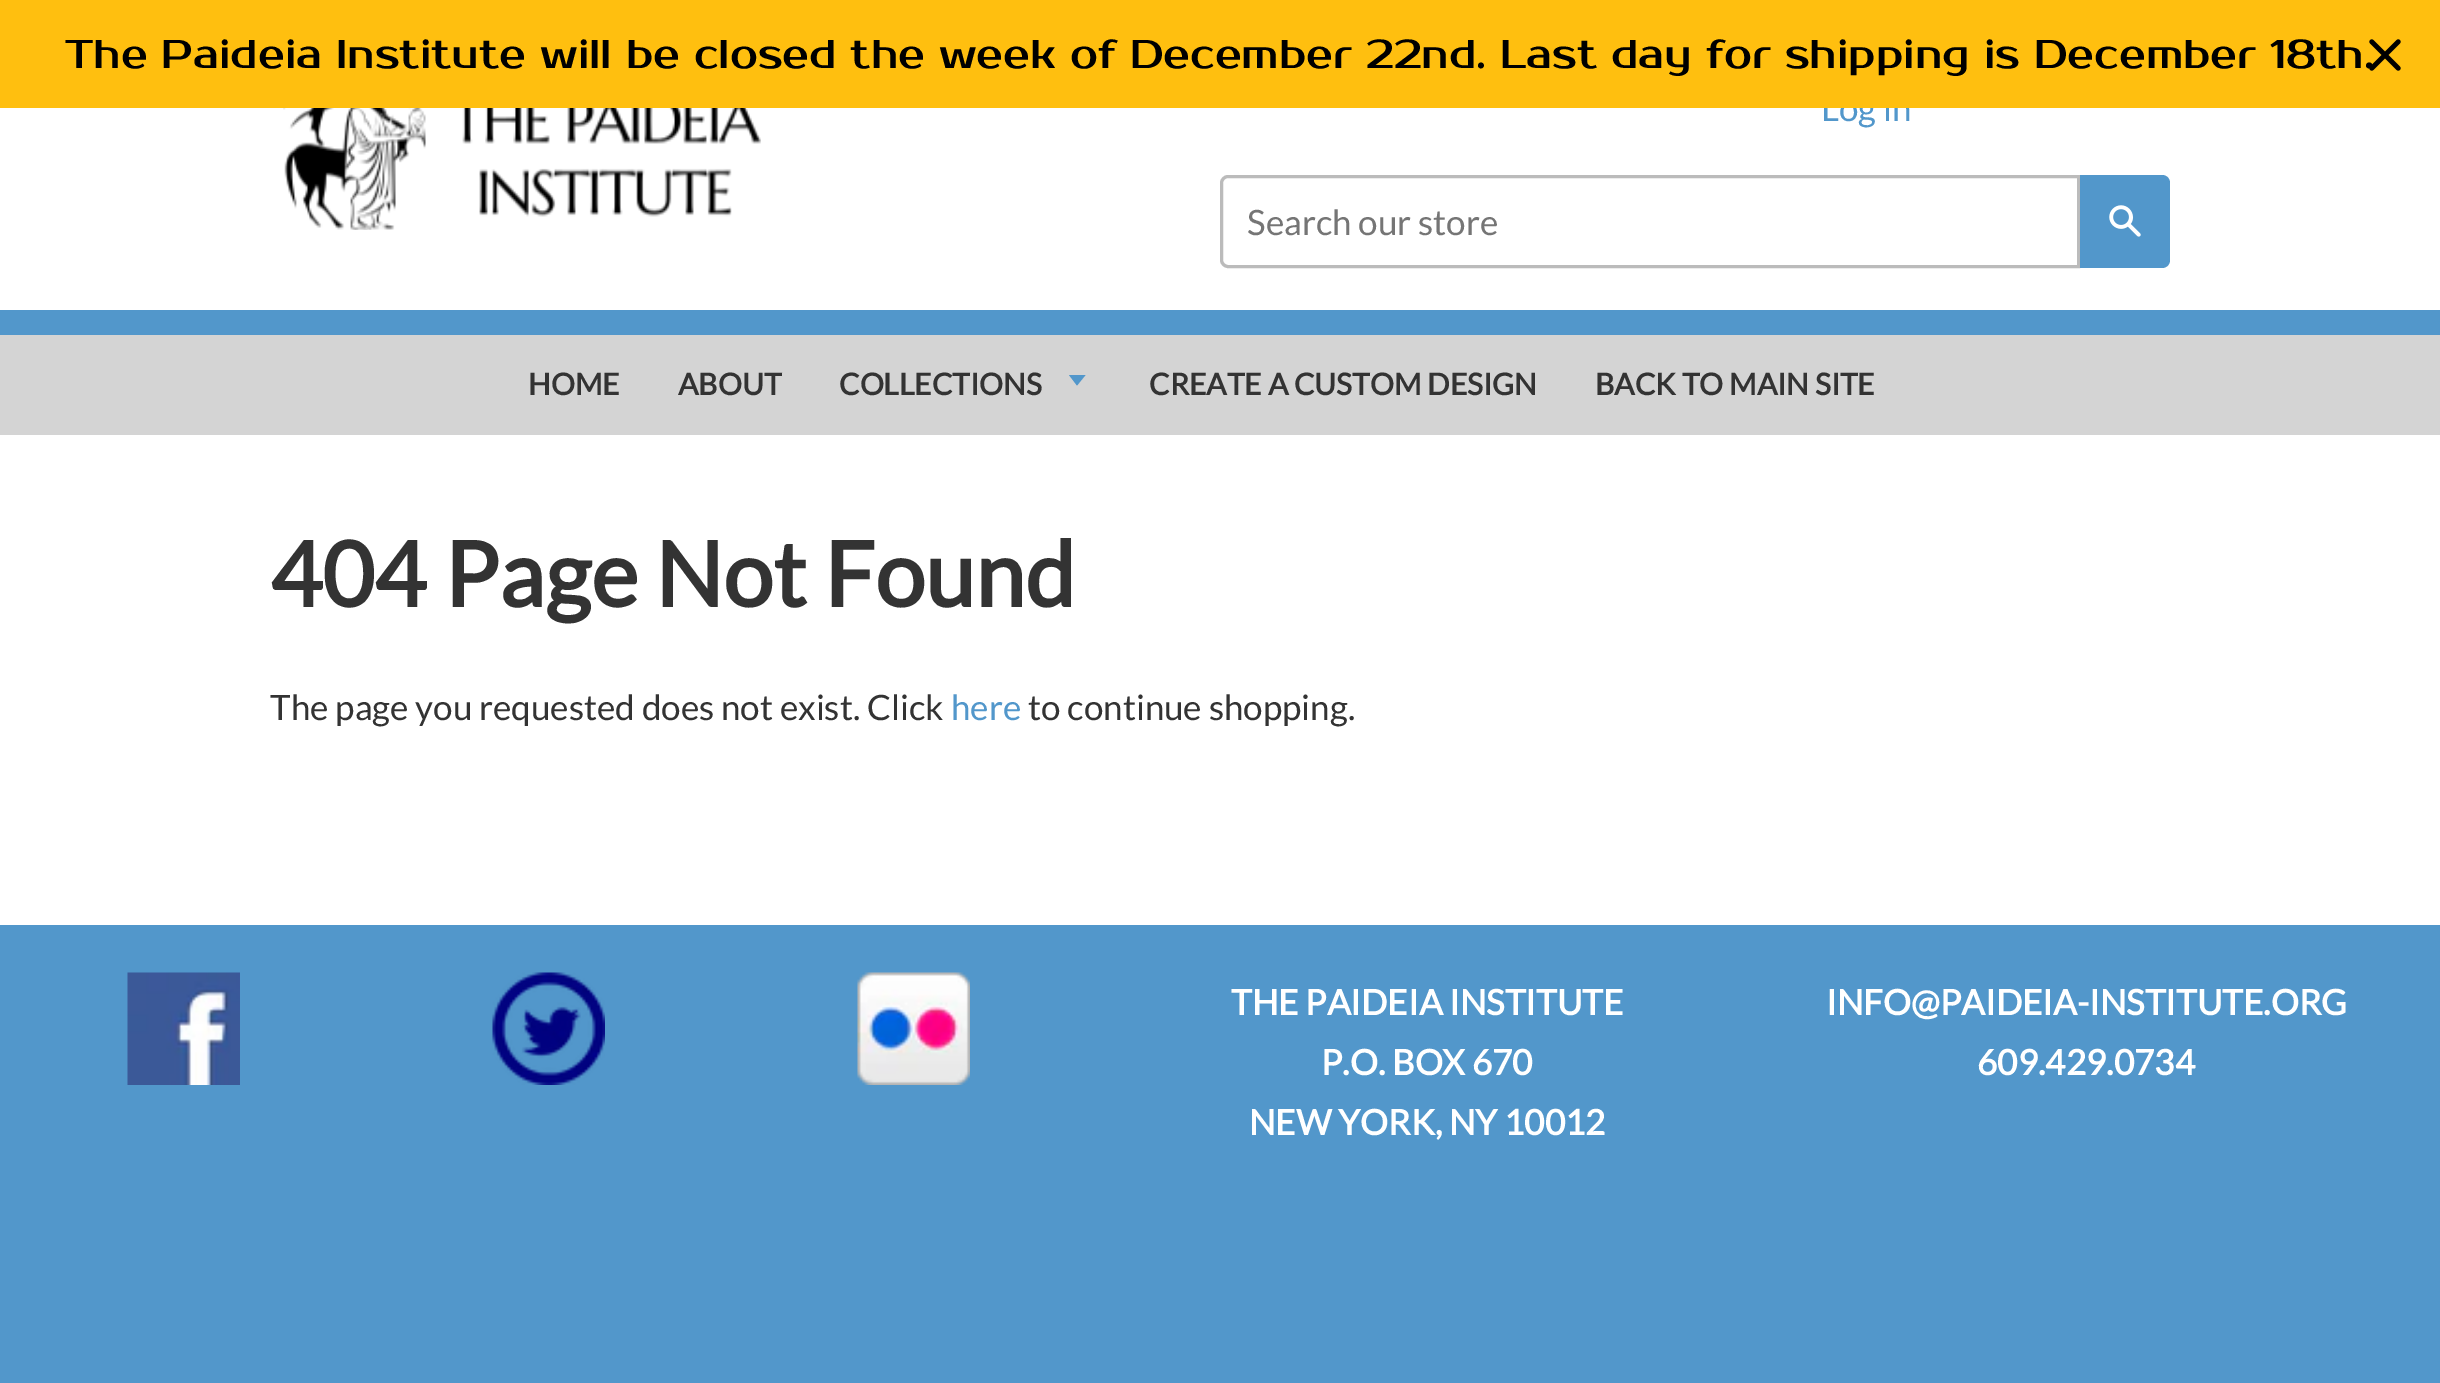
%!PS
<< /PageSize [2440 1383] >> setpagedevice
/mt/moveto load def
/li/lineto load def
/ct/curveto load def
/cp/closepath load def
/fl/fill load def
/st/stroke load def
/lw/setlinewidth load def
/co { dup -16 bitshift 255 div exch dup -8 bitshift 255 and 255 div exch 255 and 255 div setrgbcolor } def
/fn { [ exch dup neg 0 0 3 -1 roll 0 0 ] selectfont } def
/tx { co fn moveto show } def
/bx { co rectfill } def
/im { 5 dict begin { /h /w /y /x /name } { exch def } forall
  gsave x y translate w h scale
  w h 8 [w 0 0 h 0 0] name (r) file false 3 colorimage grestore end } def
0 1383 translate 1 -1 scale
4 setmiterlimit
0 0 2440 1383 16#5297CB bx
0 108 2440 817 16#FFFFFF bx
(media/2.raw) 283 108 478 122 im
16#BBBBBB co
3 lw
1228 176.5 mt 2078.5 176.5 li 2078.5 266.5 li 1228 266.5 li 1224.5 266.5 1221.5 263.5 1221.5 260 ct 1221.5 183 li 1221.5 179.5 1224.5 176.5 1228 176.5 ct cp st
16#5297CB co
2080 175 mt 2162 175 li 2166.5 175 2170 178.5 2170 183 ct 2170 260 li 2170 264.5 2166.5 268 2162 268 ct 2080 268 li cp fl
(media/3.raw) 2109 205 32 32 im
0 310 2440 25 16#5297CB bx
0 335 2440 100 16#D4D4D4 bx
16#5297CB co
1069 375 mt 1077 385.5 li 1085.5 375 li cp fl
(media/4.raw) 127 972 113 113 im
(media/5.raw) 492 972 113 113 im
(media/6.raw) 857 972 113 113 im
(Log in) 1821 121 /Lato-Regular 35 16#5297CB tx
0 0 2440 108 16#FFBF0F bx
(The Paideia Institute will be closed the week of December 22nd. Last day for shipping is December 18th.) 65 68 /ProstoOne-Regular 40 16#000000 tx
(media/1.raw) 2369 39 32 32 im
(Search our store) 1247 235 /Lato-Regular 35 16#757575 tx
(HOME) 528 395 /Lato-Bold 30 16#333333 tx
(ABOUT) 678 395 /Lato-Bold 30 16#333333 tx
(COLLECTIONS) 839 395 /Lato-Bold 30 16#333333 tx
(CREATE A CUSTOM DESIGN) 1149 395 /Lato-Bold 30 16#333333 tx
(BACK TO MAIN SITE) 1595 395 /Lato-Bold 30 16#333333 tx
(404 Page Not Found) 270 607 /Lato-Bold 90 16#333333 tx
(The page you requested does not exist. Click) 270 720 /Lato-Regular 35 16#333333 tx
(here) 951 720 /Lato-Regular 35 16#5297CB tx
(to continue shopping.) 1028 720 /Lato-Regular 35 16#333333 tx
(THE PAIDEIA INSTITUTE) 1231 1015 /Lato-Bold 35 16#FFFFFF tx
(P.O. BOX 670) 1321 1075 /Lato-Bold 35 16#FFFFFF tx
(NEW YORK, NY 10012) 1249 1135 /Lato-Bold 35 16#FFFFFF tx
(INFO@PAIDEIA-INSTITUTE.ORG) 1826 1015 /Lato-Bold 35 16#FFFFFF tx
(609.429.0734) 1977 1075 /Lato-Bold 35 16#FFFFFF tx
showpage
